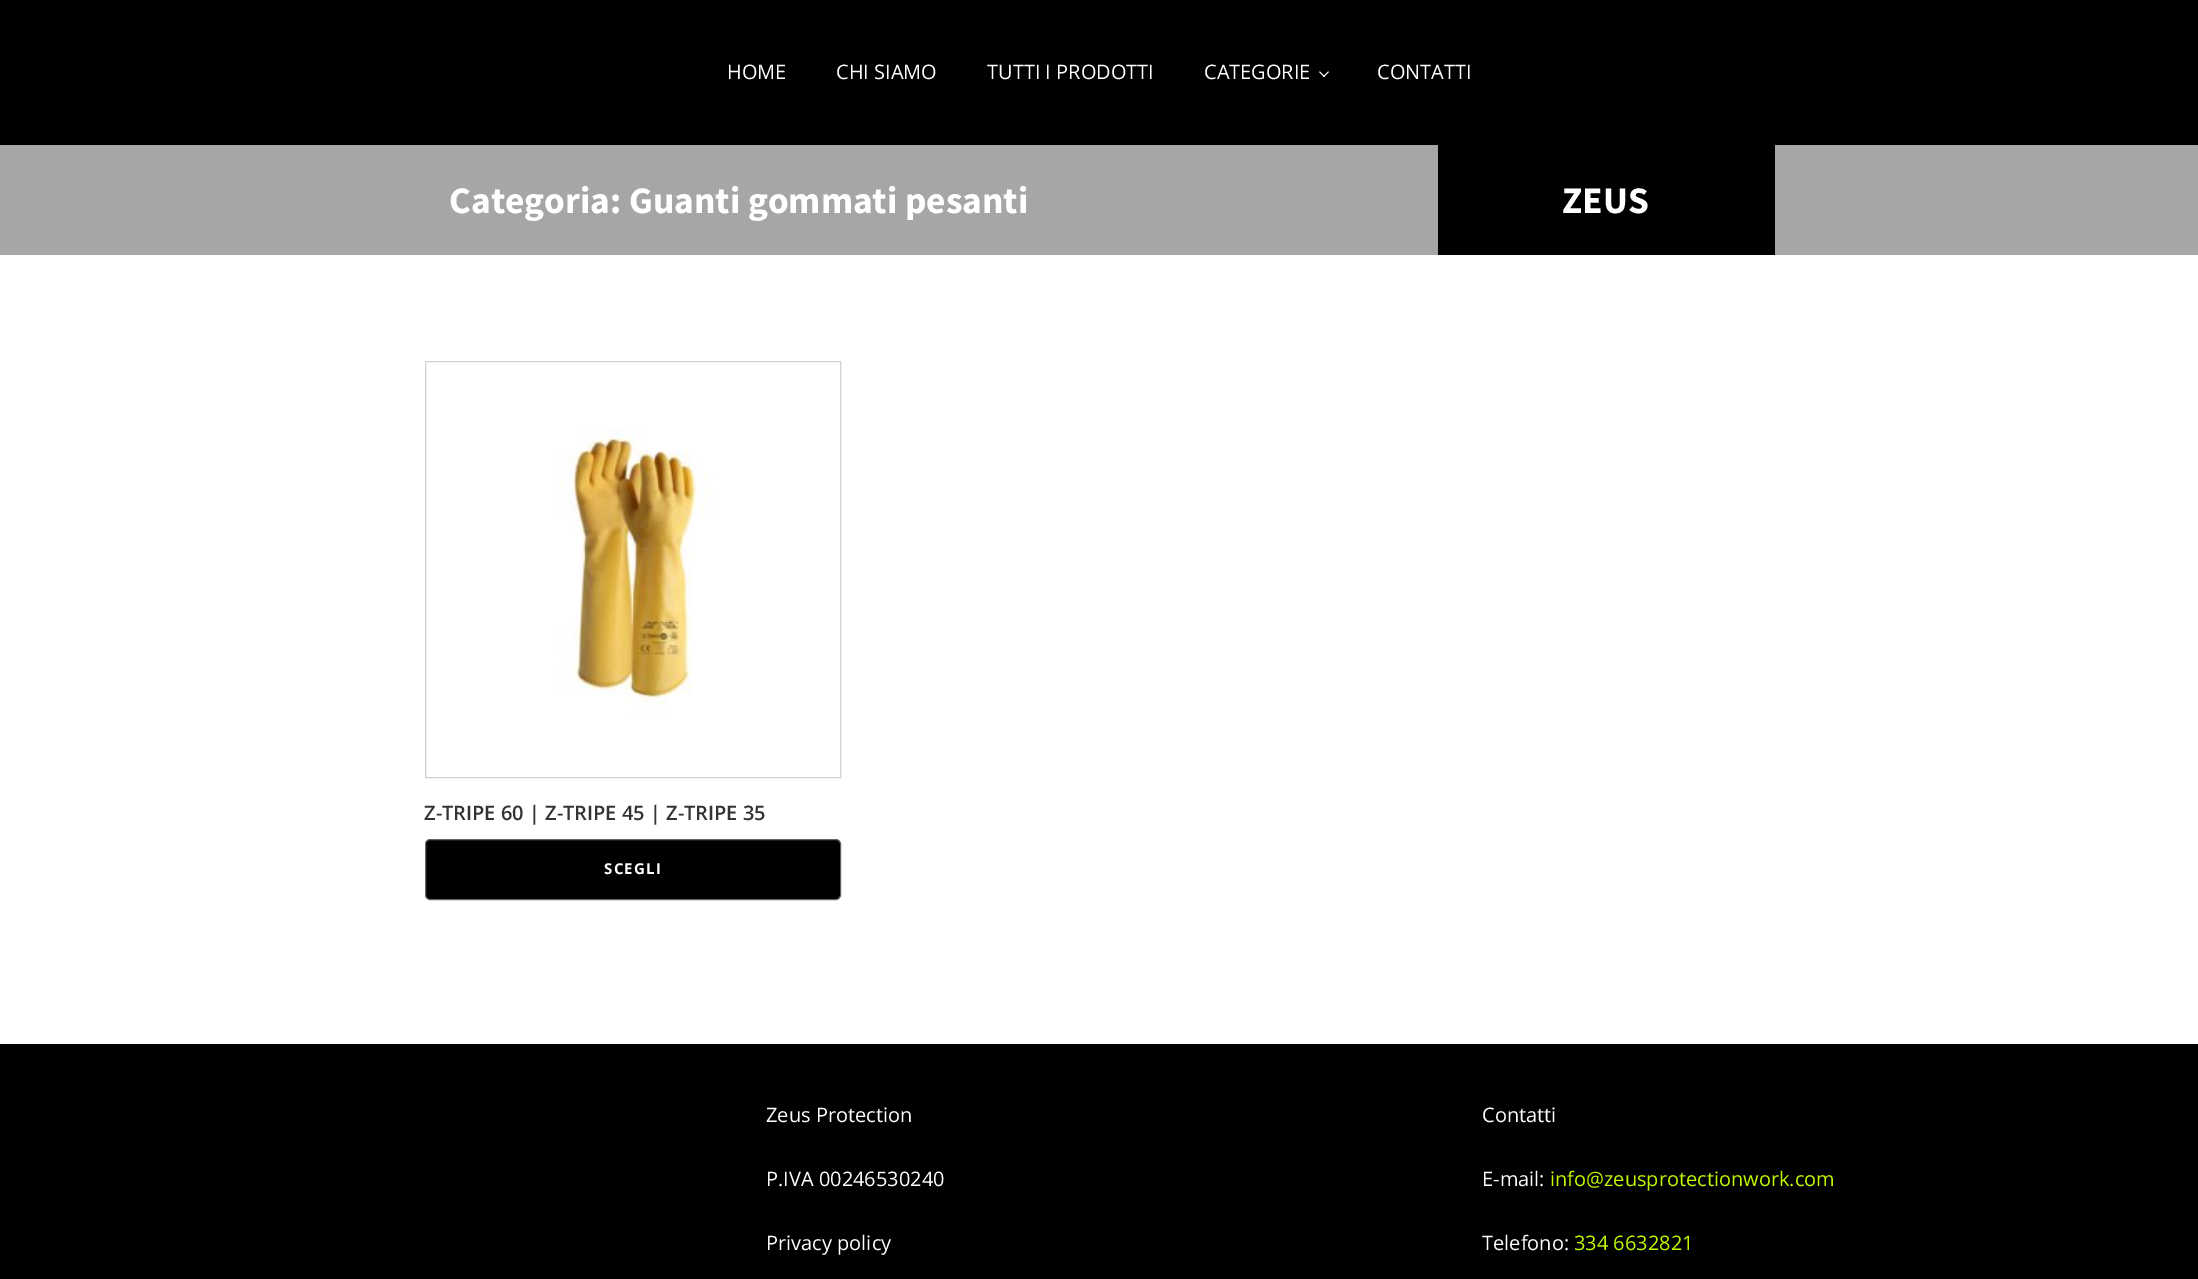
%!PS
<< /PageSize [2198 1279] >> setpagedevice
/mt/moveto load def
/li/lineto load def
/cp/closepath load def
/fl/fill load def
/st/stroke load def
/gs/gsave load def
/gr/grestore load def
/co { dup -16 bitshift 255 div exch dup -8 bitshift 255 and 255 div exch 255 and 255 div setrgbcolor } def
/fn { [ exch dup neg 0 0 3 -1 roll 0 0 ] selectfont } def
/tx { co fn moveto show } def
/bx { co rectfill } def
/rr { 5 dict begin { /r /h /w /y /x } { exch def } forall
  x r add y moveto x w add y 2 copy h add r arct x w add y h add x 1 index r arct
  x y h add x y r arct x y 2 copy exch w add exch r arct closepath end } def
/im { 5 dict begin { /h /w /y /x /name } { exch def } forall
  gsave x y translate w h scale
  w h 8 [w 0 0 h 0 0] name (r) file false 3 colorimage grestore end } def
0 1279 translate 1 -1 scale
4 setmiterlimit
0 0 2198 1279 16#FFFFFF bx
0 0 2198 145 16#000000 bx
16#FFFFFF co
1329 72 mt 1324 77 li 1323 76.5 li 1328 71.5 li cp fl
1325 76.5 mt 1324 77 li 1319 72 li 1320 71.5 li cp fl
0 145 2198 110 16#A6A6A6 bx
1438 145 337 110 16#000000 bx
16#D3CED2 co
425.5 361.5 415 416 rectstroke
(media/1.raw) 558 429 155 286 im
16#000000 co
425.5 839.5 415 60 4.5 rr gs fl gr
16#666666 co
st
0 1044 2198 235 16#000000 bx
(HOME) 727 79 /OpenSans-Regular 20 16#FFFFFF tx
(CHI SIAMO) 836 79 /OpenSans-Regular 20 16#FFFFFF tx
(TUTTI I PRODOTTI) 987 79 /OpenSans-Regular 20 16#FFFFFF tx
(CATEGORIE) 1204 79 /OpenSans-Regular 20 16#FFFFFF tx
(CONTATTI) 1377 79 /OpenSans-Regular 20 16#FFFFFF tx
(Categoria: Guanti gommati pesanti) 449 213 /SourceSansPro-Bold 37.5 16#FFFFFF tx
(ZEUS) 1562 213 /SourceSansPro-Bold 37.5 16#FFFFFF tx
(Z-TRIPE 60 | Z-TRIPE 45 | Z-TRIPE 35) 424 820 /OpenSans-SemiBold 20 16#333333 tx
/OpenSans-Bold 15 fn
16#FFFFFF co
604 874 mt 1.25 0 (SCEGLI) ashow
(Zeus Protection) 766 1122 /OpenSans-Regular 20 16#FFFFFF tx
(P.IVA 00246530240) 766 1186 /OpenSans-Regular 20 16#FFFFFF tx
(Privacy policy) 766 1250 /OpenSans-Regular 20 16#FFFFFF tx
(Contatti) 1482 1122 /OpenSans-Regular 20 16#FFFFFF tx
(E-mail:) 1482 1186 /OpenSans-Regular 20 16#FFFFFF tx
(info@zeusprotectionwork.com) 1550 1186 /OpenSans-Regular 20 16#C0F900 tx
(Telefono:) 1482 1250 /OpenSans-Regular 20 16#FFFFFF tx
(334 6632821) 1574 1250 /OpenSans-Regular 20 16#C0F900 tx
showpage
